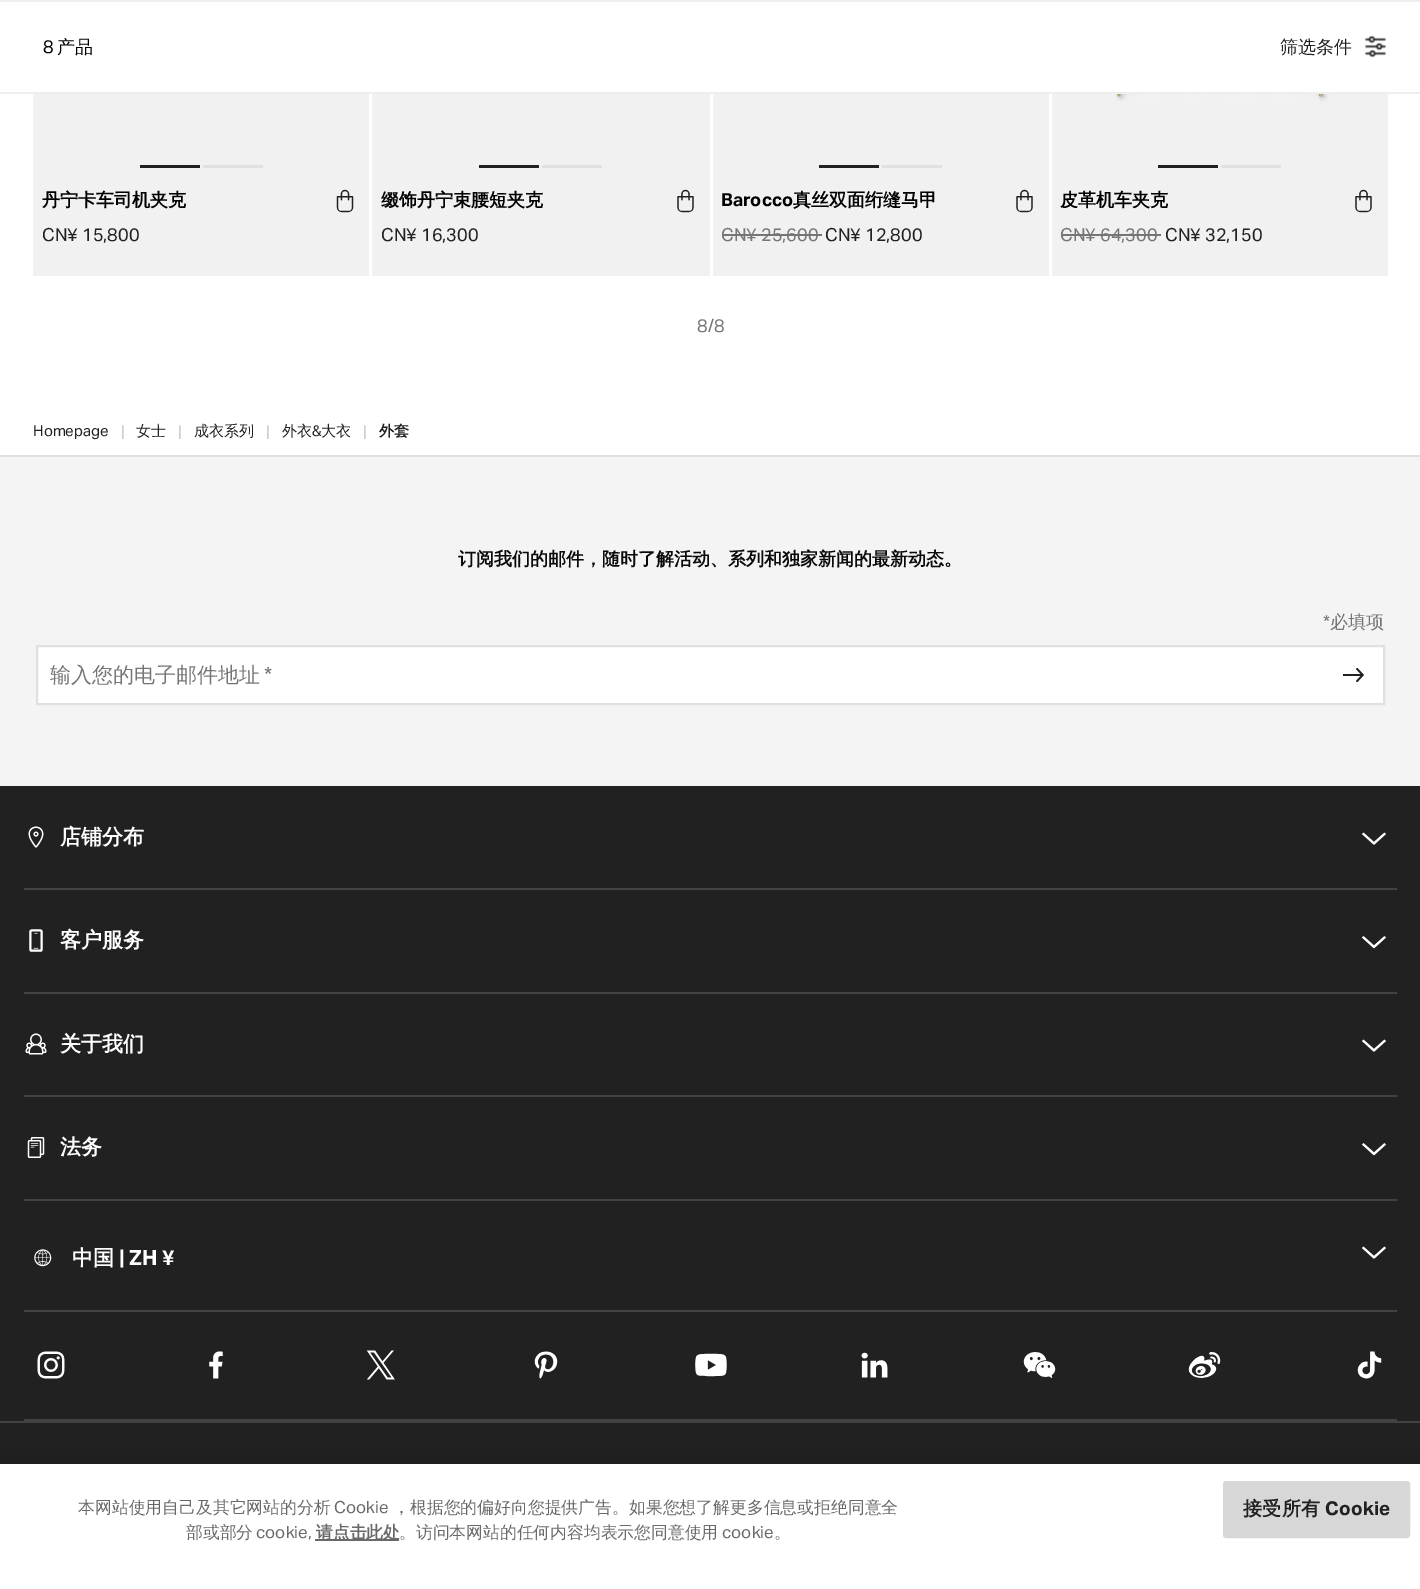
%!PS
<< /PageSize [1420 1589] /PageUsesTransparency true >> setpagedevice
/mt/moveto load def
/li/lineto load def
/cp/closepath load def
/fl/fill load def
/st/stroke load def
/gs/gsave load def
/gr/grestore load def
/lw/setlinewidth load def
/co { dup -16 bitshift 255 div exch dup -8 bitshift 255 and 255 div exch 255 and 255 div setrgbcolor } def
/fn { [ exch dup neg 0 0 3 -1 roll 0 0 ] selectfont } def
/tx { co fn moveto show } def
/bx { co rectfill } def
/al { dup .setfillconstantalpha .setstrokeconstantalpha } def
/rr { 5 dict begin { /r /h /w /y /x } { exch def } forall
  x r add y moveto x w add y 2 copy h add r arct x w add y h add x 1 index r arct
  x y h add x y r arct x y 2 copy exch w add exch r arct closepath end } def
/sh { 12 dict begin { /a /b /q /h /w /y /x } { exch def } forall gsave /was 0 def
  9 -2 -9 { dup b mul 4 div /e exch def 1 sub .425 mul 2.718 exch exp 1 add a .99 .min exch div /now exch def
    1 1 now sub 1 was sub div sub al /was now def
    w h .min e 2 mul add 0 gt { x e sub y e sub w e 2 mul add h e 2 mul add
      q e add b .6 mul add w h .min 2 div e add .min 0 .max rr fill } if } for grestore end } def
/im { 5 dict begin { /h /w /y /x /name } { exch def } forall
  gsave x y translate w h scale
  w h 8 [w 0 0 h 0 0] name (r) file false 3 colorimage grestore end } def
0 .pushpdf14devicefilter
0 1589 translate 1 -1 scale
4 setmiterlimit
0 0 1420 1589 16#FFFFFF bx
0 0 1420 2 16#EEEEEE bx
0 92 1420 2 16#EEEEEE bx
(media/1.raw) 1364 35 23 23 im
33 94 336 182 16#F1F1F1 bx
140 165 60 3 16#212121 bx
203 165 60 3 16#E0E0E0 bx
(media/2.raw) 336 189 18 24 im
372 94 338 182 16#F1F1F1 bx
479 165 60 3 16#212121 bx
542 165 60 3 16#E0E0E0 bx
(media/3.raw) 677 189 17 24 im
713 94 336 182 16#F1F1F1 bx
819 165 60 3 16#212121 bx
882 165 60 3 16#E0E0E0 bx
(media/4.raw) 1016 189 17 24 im
722 234 100 2 16#757575 bx
1052 94 336 182 16#F1F1F1 bx
(media/5.raw) 1114 94 216 8 im
1158 165 60 3 16#212121 bx
1221 165 60 3 16#E0E0E0 bx
(media/3.raw) 1355 189 17 24 im
1061 234 100 2 16#757575 bx
0 457 1420 329 16#F4F4F4 bx
0 455 1420 2 16#E0E0E0 bx
16#FFFFFF co
37 646 mt 1384 646 li 1384 704 li 37 704 li cp gs fl gr
16#E0E0E0 co
2 lw
st
(media/6.raw) 1343 668 21 15 im
0 786 1420 635 16#212121 bx
24 888 1373 2 16#424242 bx
(media/7.raw) 28 826 16 22 im
(media/8.raw) 1361 832 25 13 im
24 992 1373 2 16#424242 bx
(media/9.raw) 29 929 14 23 im
(media/10.raw) 1361 936 25 13 im
24 1095 1373 2 16#424242 bx
(media/11.raw) 25 1033 22 22 im
(media/8.raw) 1361 1039 25 13 im
24 1199 1373 2 16#424242 bx
(media/12.raw) 27 1137 18 21 im
(media/10.raw) 1361 1143 25 13 im
24 1310 1373 2 16#424242 bx
(media/13.raw) 34 1249 18 18 im
(media/8.raw) 1361 1246 25 13 im
24 1419 1373 2 16#424242 bx
(media/14.raw) 37 1351 28 28 im
(media/15.raw) 209 1351 14 28 im
(media/16.raw) 366 1350 29 30 im
(media/17.raw) 534 1351 24 28 im
(media/18.raw) 695 1353 32 24 im
(media/19.raw) 861 1352 27 26 im
(media/20.raw) 1023 1352 33 26 im
(media/21.raw) 1188 1352 33 26 im
(media/22.raw) 1357 1351 25 28 im
0 1423 1420 41 16#212121 bx
0 1421 1420 2 16#424242 bx
16#000000 co
0 1464 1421 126 0 13.5 .2 sh
0 1464 1420 125 16#FFFFFF bx
315 1539 84 2 16#696969 bx
16#D7D7D7 co
1224 1482 185 55 2 rr gs fl gr
st
(8) 43 53 /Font-Regular 18 16#000000 tx
(产品) 57 53 /WenQuanYiZenHei-Medium 18 16#000000 tx
(筛选条件) 1280 53 /WenQuanYiZenHei-Medium 18 16#212121 tx
(丹宁卡车司机夹克) 42 206 /WenQuanYiZenHei-Bold 18 16#000000 tx
(CN¥ 15,800) 42 241 /Font-Regular 18 16#212121 tx
(缀饰丹宁束腰短夹克) 381 206 /WenQuanYiZenHei-Bold 18 16#000000 tx
(CN¥ 16,300) 381 241 /Font-Regular 18 16#212121 tx
(Barocco) 721 206 /Font-Bold 18 16#000000 tx
(真丝双面绗缝马甲) 793 206 /WenQuanYiZenHei-Bold 18 16#000000 tx
(CN¥ 25,600) 721 241 /Font-Regular 18 16#757575 tx
(CN¥ 12,800) 825 241 /Font-Regular 18 16#212121 tx
(皮革机车夹克) 1060 206 /WenQuanYiZenHei-Bold 18 16#000000 tx
(CN¥ 64,300) 1060 241 /Font-Regular 18 16#757575 tx
(CN¥ 32,150) 1165 241 /Font-Regular 18 16#212121 tx
(8/8) 697 332 /Font-Regular 18 16#757575 tx
(Homepage) 33 436 /Font-Regular 15 16#212121 tx
(|) 121 437 /Font-Regular 16 16#BDBDBD tx
(女士) 136 436 /WenQuanYiZenHei-Medium 15 16#212121 tx
(|) 178 437 /Font-Regular 16 16#BDBDBD tx
(成衣系列) 194 436 /WenQuanYiZenHei-Medium 15 16#212121 tx
(|) 266 437 /Font-Regular 16 16#BDBDBD tx
(外衣) 282 436 /WenQuanYiZenHei-Medium 15 16#212121 tx
(&) 312 436 /Font-Regular 15 16#212121 tx
(大衣) 321 436 /WenQuanYiZenHei-Medium 15 16#212121 tx
(|) 363 437 /Font-Regular 16 16#BDBDBD tx
(外套) 379 436 /WenQuanYiZenHei-Bold 15 16#212121 tx
(订阅我们的邮件，随时了解活动、系列和独家新闻的最新动态。) 458 565 /WenQuanYiZenHei-Bold 18 16#0A0A0A tx
(*) 1323 628 /Font-Regular 18 16#757575 tx
(必填项) 1330 628 /WenQuanYiZenHei-Medium 18 16#757575 tx
gs
50 662 1291 28 rectclip
(输入您的电子邮件地址) 50 682 /WenQuanYiZenHei-Medium 21 16#757575 tx
gr
(*) 264 682 /Font-Regular 21 16#757575 tx
(店铺分布) 60 844 /WenQuanYiZenHei-Bold 21 16#FFFFFF tx
(客户服务) 60 947 /WenQuanYiZenHei-Bold 21 16#FFFFFF tx
(关于我们) 60 1051 /WenQuanYiZenHei-Bold 21 16#FFFFFF tx
(法务) 60 1154 /WenQuanYiZenHei-Bold 21 16#FFFFFF tx
(中国) 72 1265 /WenQuanYiZenHei-Bold 21 16#FFFFFF tx
(| ZH ¥) 119 1265 /Font-Bold 21 16#FFFFFF tx
/WenQuanYiZenHei-Medium 16.8 fn
16#696969 co
78 1513 mt .05 0 (本网站使用自己及其它网站的分析) ashow
/Font-Regular 16.8 fn
334 1513 mt .05 0 (Cookie) ashow
/WenQuanYiZenHei-Medium 16.8 fn
393 1513 mt .05 0 (，根据您的偏好向您提供广告。如果您想了解更多信息或拒绝同意全) ashow
(部或部分) 186 1538 /WenQuanYiZenHei-Medium 16.8 16#696969 tx
(cookie,) 256 1538 /Font-Regular 16.8 16#696969 tx
(请点击此处) 316 1538 /WenQuanYiZenHei-Bold 16.8 16#696969 tx
(。访问本网站的任何内容均表示您同意使用) 399 1538 /WenQuanYiZenHei-Medium 16.8 16#696969 tx
(cookie) 722 1538 /Font-Regular 16.8 16#696969 tx
(。) 774 1538 /WenQuanYiZenHei-Medium 16.8 16#696969 tx
/WenQuanYiZenHei-Bold 19 fn
16#212121 co
1243 1515 mt .25 0 (接受所有) ashow
/Font-Bold 19 fn
1325 1515 mt .25 0 (Cookie) ashow
.poppdf14devicefilter showpage
